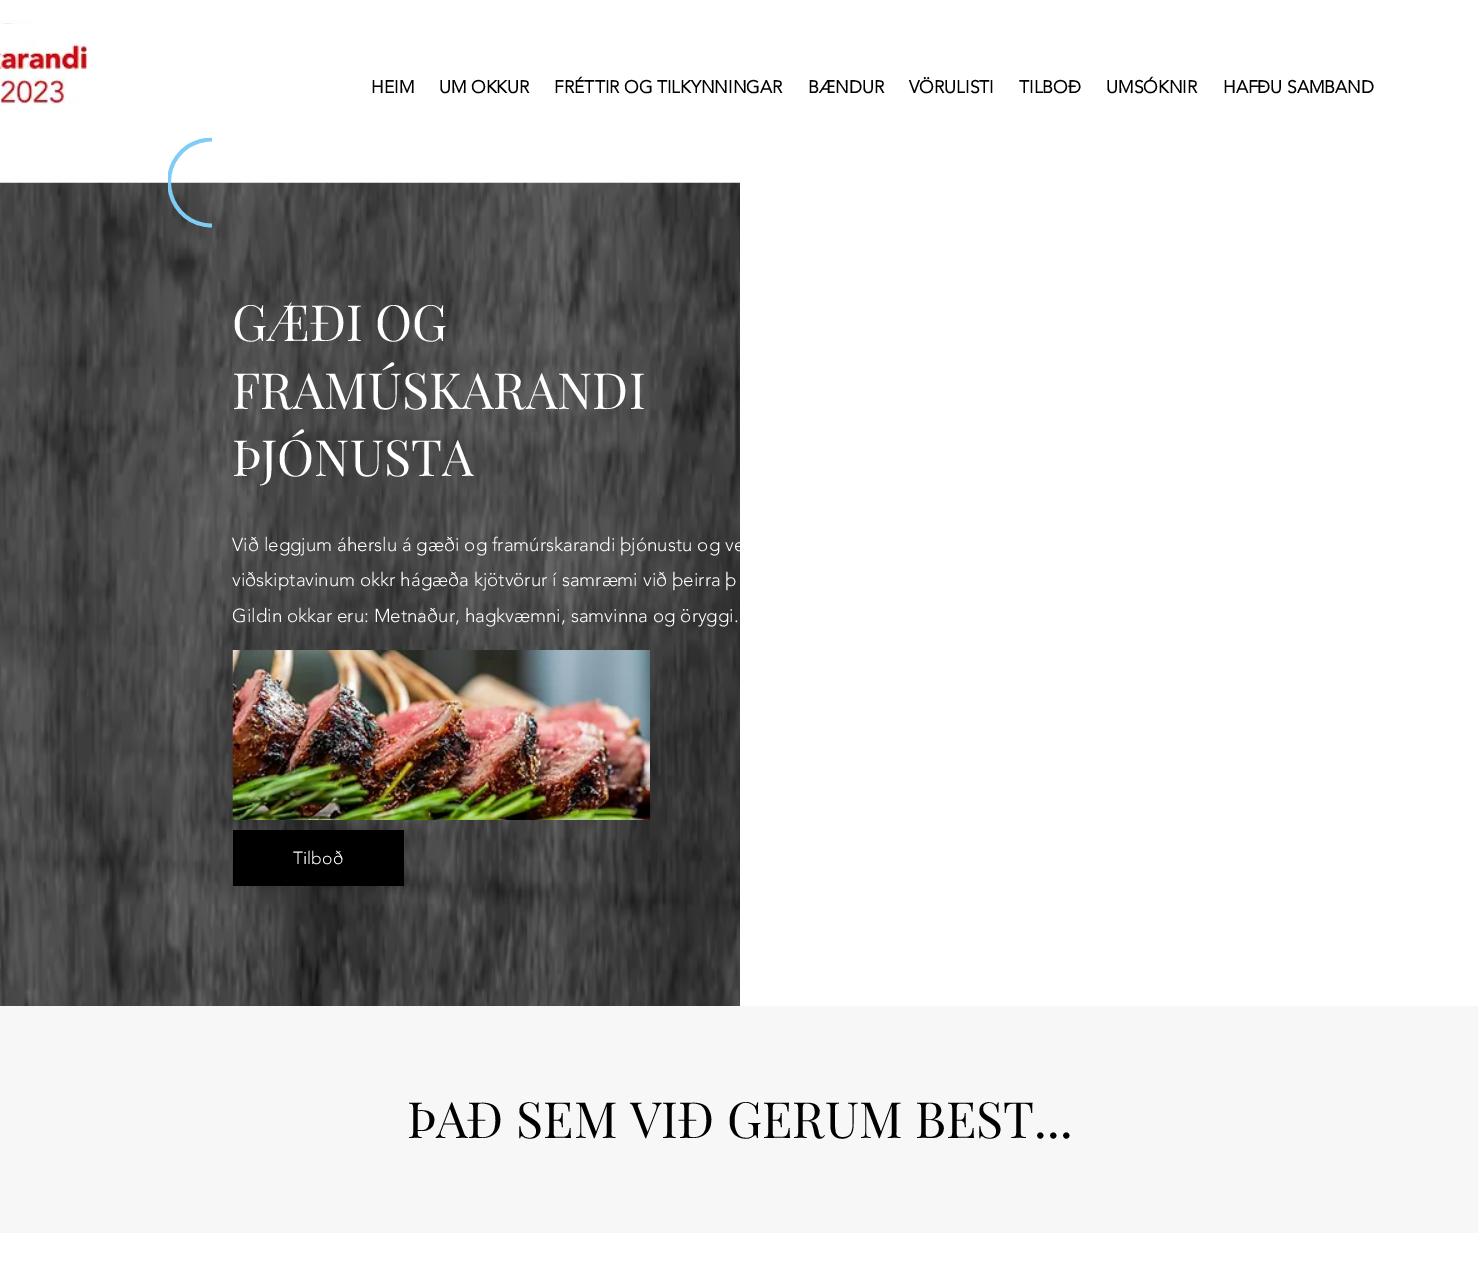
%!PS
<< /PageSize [1478 1272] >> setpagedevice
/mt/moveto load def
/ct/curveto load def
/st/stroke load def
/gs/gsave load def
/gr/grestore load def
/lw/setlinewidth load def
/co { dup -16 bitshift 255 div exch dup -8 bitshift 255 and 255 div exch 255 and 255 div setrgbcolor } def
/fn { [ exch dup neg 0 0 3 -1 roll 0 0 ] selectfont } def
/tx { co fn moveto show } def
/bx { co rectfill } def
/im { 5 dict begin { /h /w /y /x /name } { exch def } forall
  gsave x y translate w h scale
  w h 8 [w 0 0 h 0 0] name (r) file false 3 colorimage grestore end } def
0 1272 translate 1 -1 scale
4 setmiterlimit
0 0 1478 1272 16#FFFFFF bx
(media/1.raw) 0 20 40 4 im
(media/2.raw) 0 24 91 97 im
(media/3.raw) 0 182 740 824 im
gs
168 138 45 90 rectclip
16#7FCCF7 co
3.8 lw
212 225.5 mt 169.5 225.5 153 170 188 146.5 ct 195 142 203.5 139.5 212 139.5 ct st
gr
(media/4.raw) 232 650 418 170 im
233 830 171 56 16#000000 bx
0 1006 1478 227 16#F7F7F7 bx
(HEIM) 371 93 /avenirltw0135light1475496-Bold 17.5 16#000000 tx
(UM OKKUR) 439 93 /avenirltw0135light1475496-Bold 17.5 16#000000 tx
(FRÉTTIR OG TILKYNNINGAR) 554 93 /avenirltw0135light1475496-Bold 17.5 16#000000 tx
(BÆNDUR) 808 93 /avenirltw0135light1475496-Bold 17.5 16#000000 tx
(VÖRULISTI) 909 93 /avenirltw0135light1475496-Bold 17.5 16#000000 tx
(TILBOÐ) 1019 93 /avenirltw0135light1475496-Bold 17.5 16#000000 tx
(UMSÓKNIR) 1106 93 /avenirltw0135light1475496-Bold 17.5 16#000000 tx
(HAFÐU SAMBAND) 1223 93 /avenirltw0135light1475496-Bold 17.5 16#000000 tx
(GÆÐI OG) 232 341 /PlayfairDisplay-Regular 50 16#FFFFFF tx
(FRAMÚSKARANDI) 232 409 /PlayfairDisplay-Regular 50 16#FFFFFF tx
(ÞJÓNUSTA) 232 476 /PlayfairDisplay-Regular 50 16#FFFFFF tx
(Við leggjum áherslu á gæði og framúrskarandi þjónustu og ve) 232 551 /avenirltw0135light1475496-Light 18.75 16#FFFFFF tx
(viðskiptavinum okkr hágæða kjötvörur í samræmi við þeirra þ) 232 586 /avenirltw0135light1475496-Light 18.75 16#FFFFFF tx
(Gildin okkar eru: Metnaður, hagkvæmni, samvinna og öryggi.) 232 622 /avenirltw0135light1475496-Light 18.75 16#FFFFFF tx
(Tilboð) 293 864 /avenirltw0135light1475496-Light 17.5 16#FFFFFF tx
(ÞAÐ SEM VIÐ GERUM BEST...) 407 1138 /PlayfairDisplay-Regular 50 16#000000 tx
showpage
